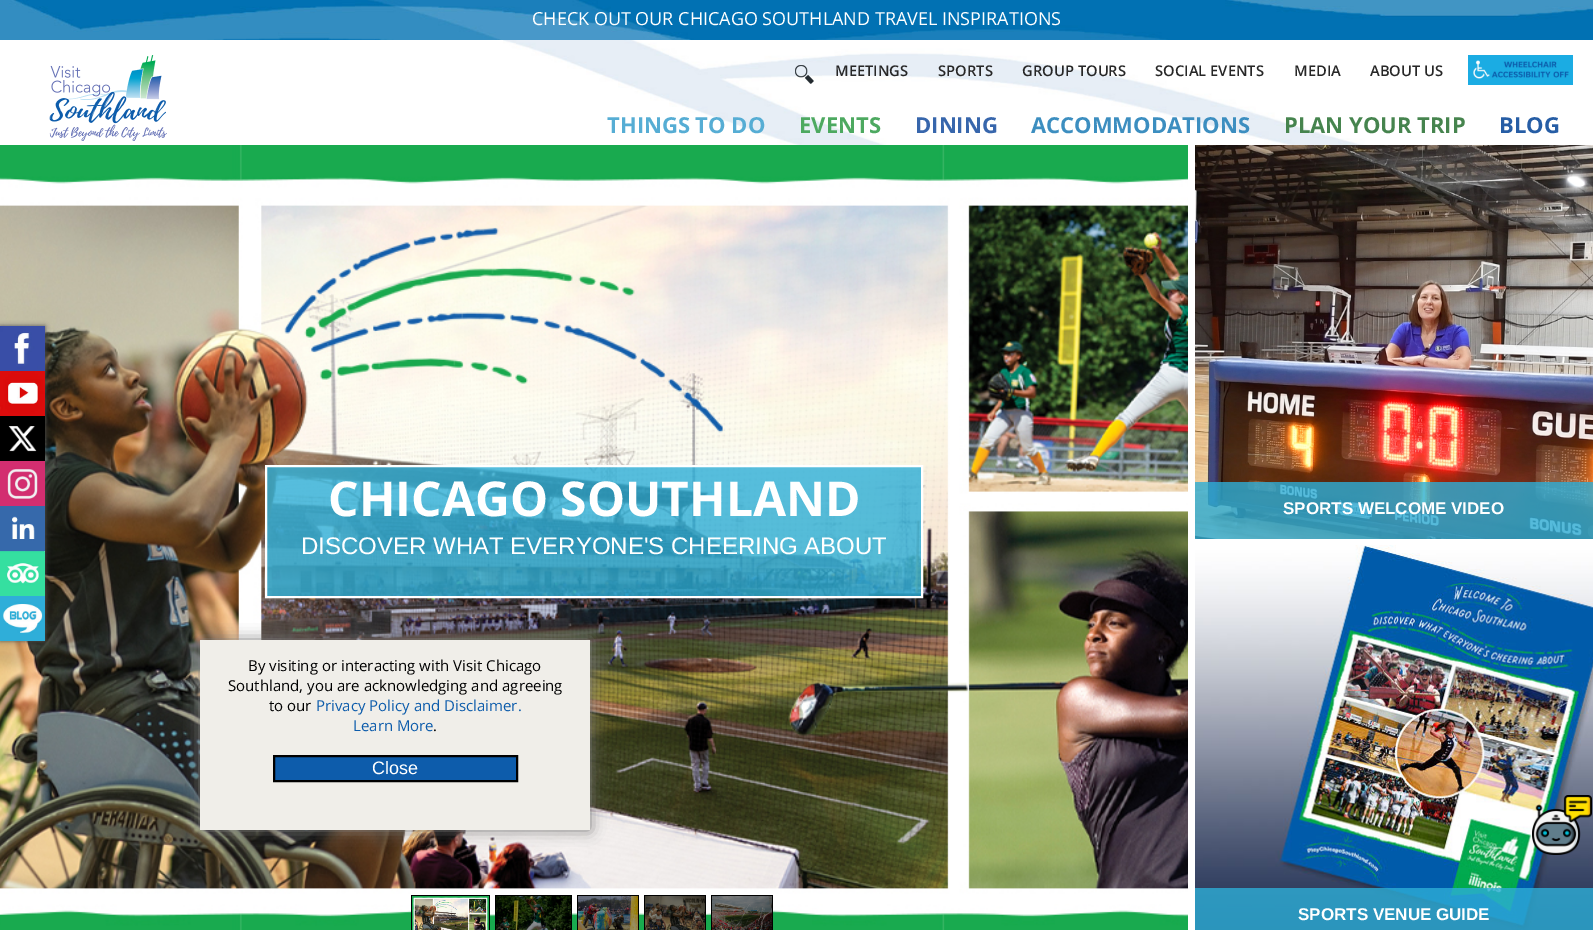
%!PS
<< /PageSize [1593 930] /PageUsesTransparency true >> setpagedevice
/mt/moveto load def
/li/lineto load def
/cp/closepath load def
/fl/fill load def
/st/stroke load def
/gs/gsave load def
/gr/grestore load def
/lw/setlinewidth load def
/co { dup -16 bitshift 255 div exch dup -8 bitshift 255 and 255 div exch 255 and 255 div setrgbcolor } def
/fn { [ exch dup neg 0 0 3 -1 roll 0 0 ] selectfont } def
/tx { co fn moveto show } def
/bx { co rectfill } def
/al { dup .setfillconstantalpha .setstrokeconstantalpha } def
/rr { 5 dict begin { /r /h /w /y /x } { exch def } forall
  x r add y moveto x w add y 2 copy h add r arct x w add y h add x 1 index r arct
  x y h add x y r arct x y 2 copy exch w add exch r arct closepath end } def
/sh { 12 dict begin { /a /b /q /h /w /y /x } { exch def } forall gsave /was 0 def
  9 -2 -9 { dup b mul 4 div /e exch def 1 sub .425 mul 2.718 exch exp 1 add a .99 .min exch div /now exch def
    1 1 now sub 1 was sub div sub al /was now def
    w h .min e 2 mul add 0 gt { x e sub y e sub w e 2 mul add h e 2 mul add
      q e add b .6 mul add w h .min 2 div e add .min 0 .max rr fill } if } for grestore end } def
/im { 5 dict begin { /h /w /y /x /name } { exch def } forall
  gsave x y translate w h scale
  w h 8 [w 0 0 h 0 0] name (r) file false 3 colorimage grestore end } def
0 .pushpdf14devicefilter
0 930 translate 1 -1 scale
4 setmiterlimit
0 0 1593 930 16#FFFFFF bx
(media/1.raw) 0 0 1593 40 im
(media/2.raw) 503 40 1090 105 im
(media/3.raw) 49 55 118 86 im
(media/4.raw) 795 65 19 19 im
1468 55 105 30 16#1BACE3 bx
(media/5.raw) 1473 60 96 19 im
(media/13.raw) 0 145 1188 785 im
16#555555 co
0 326 45 315 0 2.5 1 sh
(media/6.raw) 0 326 45 45 im
(media/7.raw) 0 371 45 45 im
(media/8.raw) 0 416 45 45 im
(media/9.raw) 0 461 45 45 im
(media/10.raw) 0 506 45 45 im
(media/11.raw) 0 551 45 45 im
(media/12.raw) 0 596 45 45 im
0.8 al
16#2DAED7 co
266 466 mt 922 466 li 922 597 li 266 597 li cp fl
1 al
16#FFFFFF co
2 lw
266 466 mt 922 466 li 922 597 li 266 597 li cp st
411 895 79 35 16#000000 bx
(media/14.raw) 412 896 77 34 im
495 895 77 35 16#000000 bx
(media/15.raw) 496 896 75 34 im
577 895 62 35 16#000000 bx
(media/16.raw) 578 896 60 34 im
644 895 62 35 16#000000 bx
(media/17.raw) 645 896 60 34 im
711 895 62 35 16#000000 bx
(media/18.raw) 712 896 60 34 im
(media/19.raw) 1195 145 398 394 im
0.8 al
1195 482 398 57 16#2DAED7 bx
1 al
(media/20.raw) 1195 545 398 385 im
0.8 al
1195 888 398 42 16#2DAED7 bx
1 al
16#808080 co
200 640 390 190 0 7.5 1 sh
200 640 390 190 16#F0EEE9 bx
16#0D5CAB co
274 756 mt 517 756 li 517 781 li 274 781 li cp gs fl gr
16#000000 co
st
(media/21.raw) 1532 795 60 60 im
(CHECK OUT OUR CHICAGO SOUTHLAND TRAVEL INSPIRATIONS) 532 25 /OpenSans-Regular 18 16#FFFFFF tx
(MEETINGS) 835 76 /OpenSans-SemiBold 14.75 16#272727 tx
(SPORTS) 938 76 /OpenSans-SemiBold 14.75 16#272727 tx
(GROUP TOURS) 1022 76 /OpenSans-SemiBold 14.75 16#272727 tx
(SOCIAL EVENTS) 1155 76 /OpenSans-SemiBold 14.75 16#272727 tx
(MEDIA) 1294 76 /OpenSans-SemiBold 14.75 16#272727 tx
(ABOUT US) 1370 76 /OpenSans-SemiBold 14.75 16#272727 tx
(THINGS TO DO) 607 133 /OpenSans-Bold 22 16#56ADD4 tx
(EVENTS) 799 133 /OpenSans-Bold 22 16#4DA960 tx
(DINING) 915 133 /OpenSans-Bold 22 16#3766AC tx
(ACCOMMODATIONS) 1031 133 /OpenSans-Bold 22 16#3C8EC0 tx
(PLAN YOUR TRIP) 1284 133 /OpenSans-Bold 22 16#46844E tx
(BLOG) 1499 133 /OpenSans-Bold 22 16#265DA5 tx
(CHICAGO SOUTHLAND) 328 516 /OpenSans-Bold 48 16#FFFFFF tx
(DISCOVER WHAT EVERYONE'S CHEERING ABOUT) 301 554 /LiberationSans-Regular 24 16#FFFFFF tx
(SPORTS WELCOME VIDEO) 1283 514 /LiberationSans-Bold 17 16#FFFFFF tx
(SPORTS VENUE GUIDE) 1298 920 /LiberationSans-Bold 17 16#FFFFFF tx
(By visiting or interacting with Visit Chicago) 248 671 /OpenSans-Regular 15 16#000000 tx
(Southland, you are acknowledging and agreeing) 228 691 /OpenSans-Regular 15 16#000000 tx
(to our) 269 711 /OpenSans-Regular 15 16#000000 tx
(Privacy Policy and Disclaimer.) 316 711 /OpenSans-Regular 15 16#0D5CAB tx
(Learn More) 353 731 /OpenSans-Regular 15 16#0D5CAB tx
(.) 433 731 /OpenSans-Regular 15 16#000000 tx
(Close) 372 774 /LiberationSans-Regular 18 16#FFFFFF tx
.poppdf14devicefilter showpage
